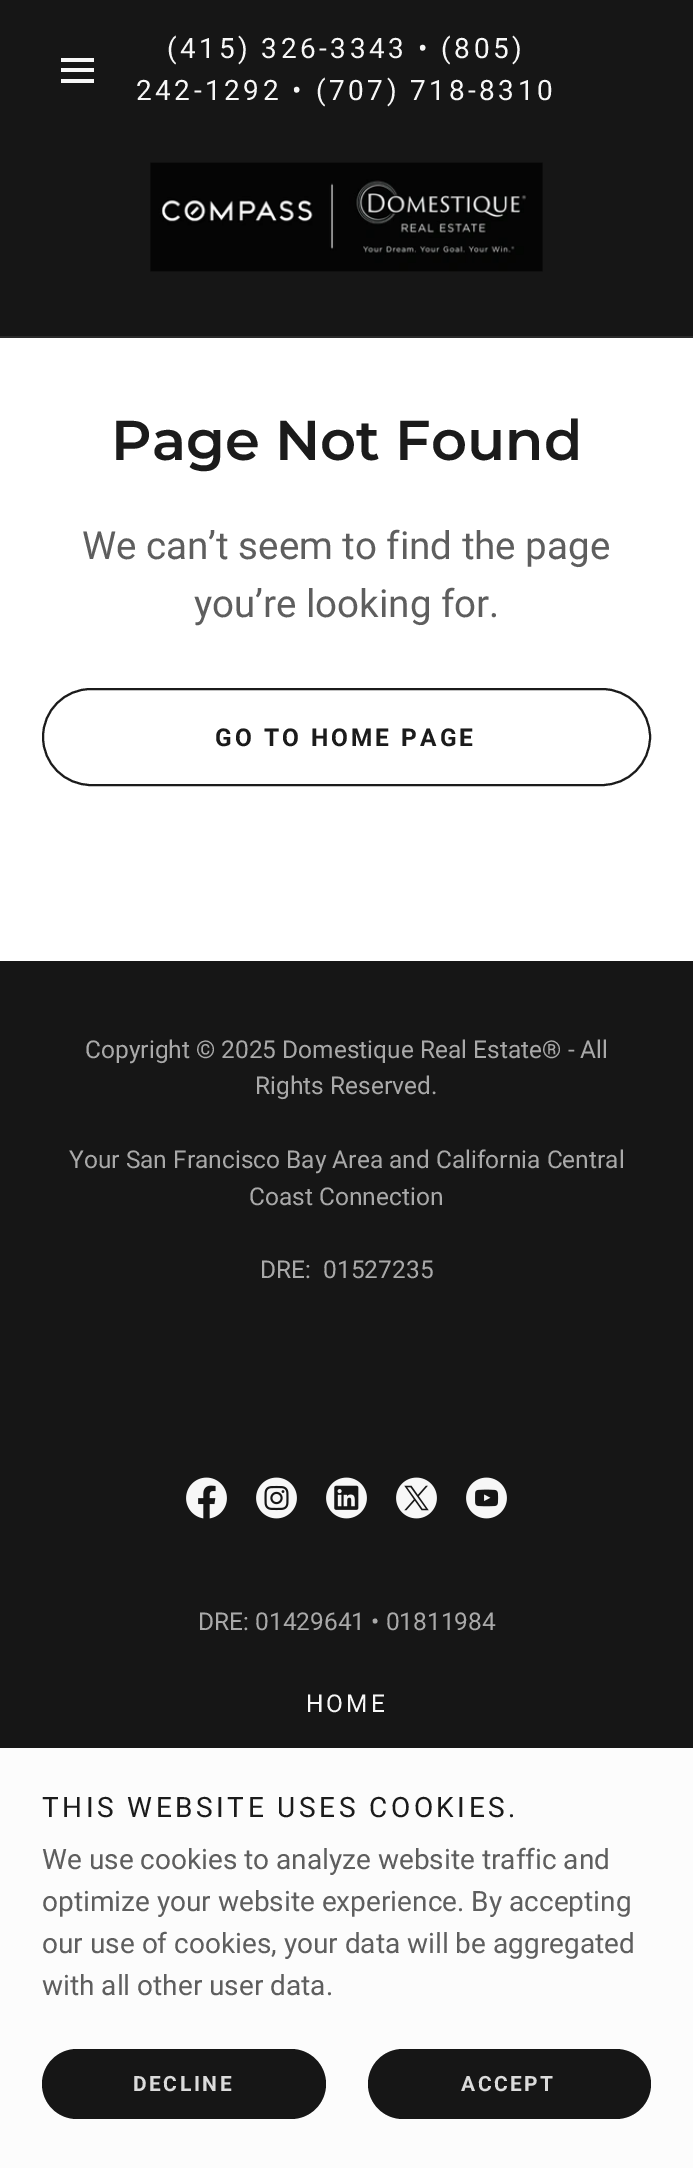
%!PS
<< /PageSize [693 2168] >> setpagedevice
/mt/moveto load def
/fl/fill load def
/st/stroke load def
/lw/setlinewidth load def
/co { dup -16 bitshift 255 div exch dup -8 bitshift 255 and 255 div exch 255 and 255 div setrgbcolor } def
/fn { [ exch dup neg 0 0 3 -1 roll 0 0 ] selectfont } def
/tx { co fn moveto show } def
/bx { co rectfill } def
/rr { 5 dict begin { /r /h /w /y /x } { exch def } forall
  x r add y moveto x w add y 2 copy h add r arct x w add y h add x 1 index r arct
  x y h add x y r arct x y 2 copy exch w add exch r arct closepath end } def
/im { 5 dict begin { /h /w /y /x /name } { exch def } forall
  gsave x y translate w h scale
  w h 8 [w 0 0 h 0 0] name (r) file false 3 colorimage grestore end } def
0 2168 translate 1 -1 scale
4 setmiterlimit
0 0 693 2168 16#161616 bx
61 58 33 4 16#F7F7F7 bx
61 68 33 4 16#F7F7F7 bx
61 79 33 4 16#F7F7F7 bx
(media/1.raw) 150 162 393 110 im
0 336 693 2 16#2A2A2A bx
0 338 693 623 16#FFFFFF bx
16#1B1B1B co
2 lw
43 689 607 96 48 rr st
(media/2.raw) 186 1477 41 42 im
(media/3.raw) 256 1477 41 42 im
(media/4.raw) 326 1477 41 42 im
(media/5.raw) 396 1477 41 42 im
(media/6.raw) 466 1477 41 42 im
0 1748 693 420 16#FCFCFC bx
16#161616 co
42 2049 284 70 35 rr fl
368 2049 283 70 35 rr fl
/Roboto-Regular 28 fn
16#F7F7F7 co
167 58 mt 3.5 0 (\(415\) 326-3343 • \(805\)) ashow
136 100 mt 3.5 0 (242-1292 • \(707\) 718-8310) ashow
(Page Not Found) 111 460 /Montserrat-SemiBold 56 16#1B1B1B tx
(We can’t seem to find the page) 82 559 /Roboto-Regular 38.5 16#5E5E5E tx
(you’re looking for.) 194 617 /Roboto-Regular 38.5 16#5E5E5E tx
/Roboto-Bold 24.5 fn
16#1B1B1B co
215 746 mt 3 0 (GO TO HOME PAGE) ashow
(Copyright © 2025 Domestique Real Estate® - All) 85 1058 /Roboto-Regular 24.5 16#A9A9A9 tx
(Rights Reserved.) 255 1094 /Roboto-Regular 24.5 16#A9A9A9 tx
(Your San Francisco Bay Area and California Central) 69 1168 /Roboto-Regular 24.5 16#A9A9A9 tx
(Coast Connection) 249 1205 /Roboto-Regular 24.5 16#A9A9A9 tx
(DRE:  01527235) 260 1278 /Roboto-Regular 24.5 16#A9A9A9 tx
(DRE: 01429641 • 01811984) 198 1630 /Roboto-Regular 24.5 16#A9A9A9 tx
16#F7F7F7 co
306 1712 mt 3 0 (HOME) ashow
/Roboto-Regular 28 fn
16#1B1B1B co
42 1817 mt 3.5 0 (THIS WEBSITE USES COOKIES.) ashow
(We use cookies to analyze website traffic and) 42 1869 /Roboto-Regular 28 16#5E5E5E tx
(optimize your website experience. By accepting) 42 1911 /Roboto-Regular 28 16#5E5E5E tx
(our use of cookies, your data will be aggregated) 42 1953 /Roboto-Regular 28 16#5E5E5E tx
(with all other user data.) 42 1995 /Roboto-Regular 28 16#5E5E5E tx
/Roboto-Bold 21 fn
16#DBDBDB co
133 2091 mt 2.5 0 (DECLINE) ashow
461 2091 mt 2.5 0 (ACCEPT) ashow
showpage
